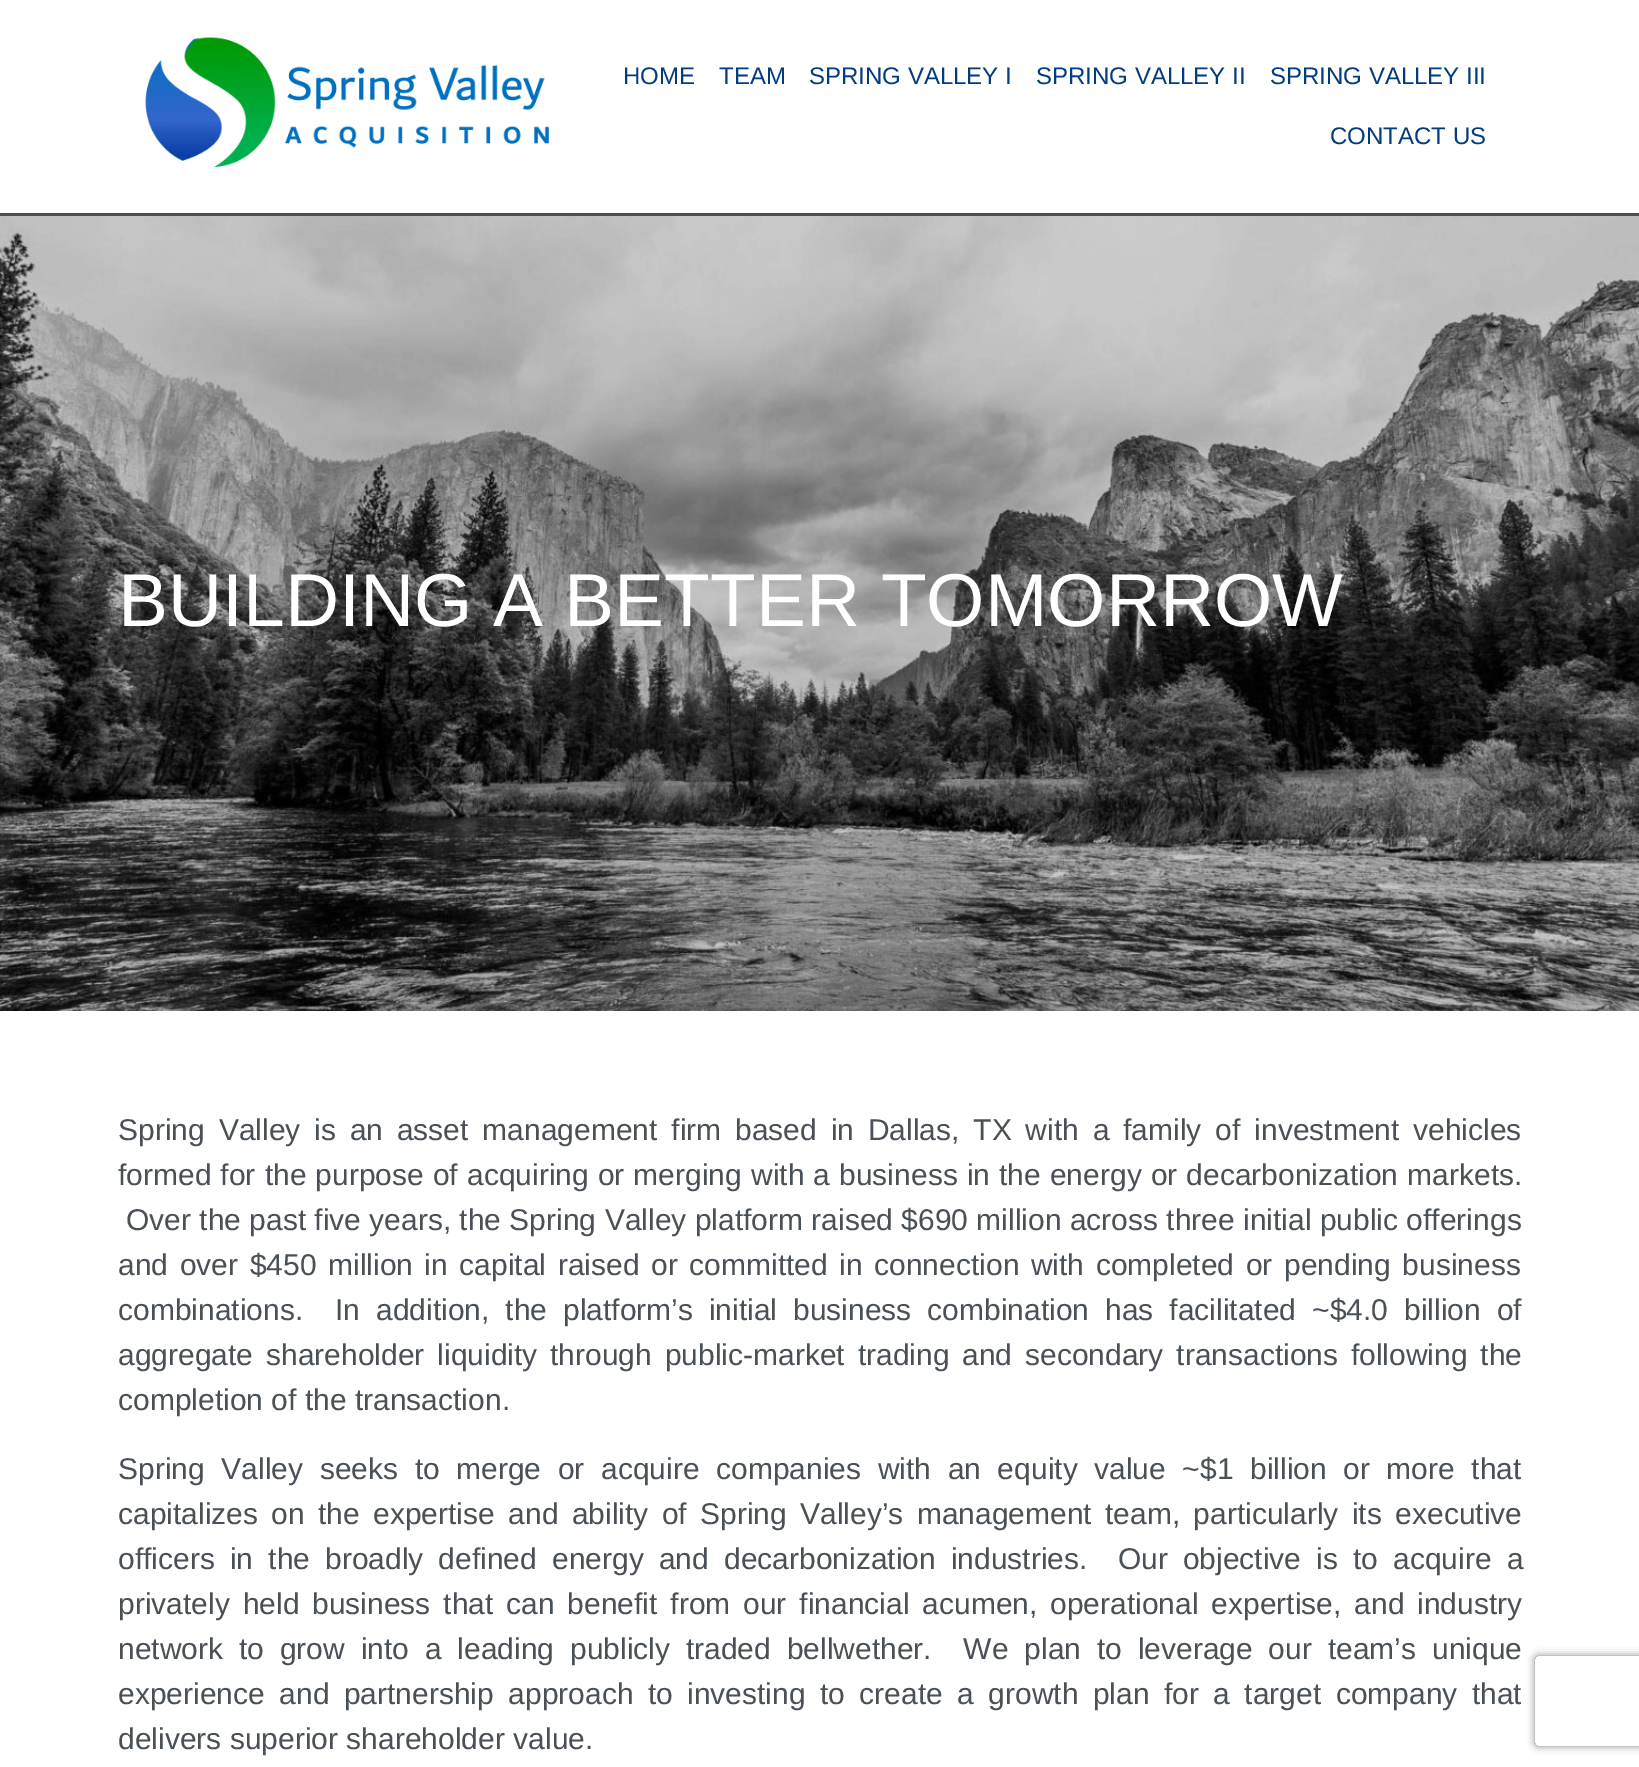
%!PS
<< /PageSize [1639 1767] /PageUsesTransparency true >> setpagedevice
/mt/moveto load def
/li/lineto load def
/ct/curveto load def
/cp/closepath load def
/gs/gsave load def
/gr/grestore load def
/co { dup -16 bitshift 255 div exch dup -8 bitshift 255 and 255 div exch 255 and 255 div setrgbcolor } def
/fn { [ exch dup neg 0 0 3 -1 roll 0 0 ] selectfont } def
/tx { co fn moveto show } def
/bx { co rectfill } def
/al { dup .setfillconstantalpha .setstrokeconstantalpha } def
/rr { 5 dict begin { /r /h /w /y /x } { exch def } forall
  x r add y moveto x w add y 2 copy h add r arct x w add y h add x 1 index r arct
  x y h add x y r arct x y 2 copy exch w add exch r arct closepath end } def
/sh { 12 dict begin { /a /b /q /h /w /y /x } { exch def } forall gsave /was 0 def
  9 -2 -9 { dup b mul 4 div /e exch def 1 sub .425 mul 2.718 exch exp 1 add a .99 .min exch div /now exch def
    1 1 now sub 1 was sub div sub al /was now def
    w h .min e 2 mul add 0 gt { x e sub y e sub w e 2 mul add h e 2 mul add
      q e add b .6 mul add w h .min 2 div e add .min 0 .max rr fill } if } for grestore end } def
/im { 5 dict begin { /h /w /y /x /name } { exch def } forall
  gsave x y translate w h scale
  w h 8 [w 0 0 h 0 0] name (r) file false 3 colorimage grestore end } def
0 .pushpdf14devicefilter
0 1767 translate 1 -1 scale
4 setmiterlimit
0 0 1639 1767 16#FFFFFF bx
0 213 1639 3 16#495057 bx
(media/1.raw) 145 37 404 130 im
(media/2.raw) 0 216 1639 795 im
gs
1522 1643 mt 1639 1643 li 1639 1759 li 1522 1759 li cp 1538 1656 mt 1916 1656 li 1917.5 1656 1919 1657.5 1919 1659 ct 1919 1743 li 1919 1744.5 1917.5 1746 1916 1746 ct 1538 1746 li 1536.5 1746 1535 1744.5 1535 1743 ct 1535 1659 li 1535 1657.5 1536.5 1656 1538 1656 ct cp eoclip newpath
16#808080 co
1535 1656 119 90 3 4 1 sh
gr
(HOME) 623 84 /LiberationSans-Regular 24 16#013C7F tx
(TEAM) 719 84 /LiberationSans-Regular 24 16#013C7F tx
(SPRING VALLEY I) 809 84 /LiberationSans-Regular 24 16#013C7F tx
(SPRING VALLEY II) 1036 84 /LiberationSans-Regular 24 16#013C7F tx
(SPRING VALLEY III) 1270 84 /LiberationSans-Regular 24 16#013C7F tx
(CONTACT US) 1330 144 /LiberationSans-Regular 24 16#013C7F tx
(BUILDING A BETTER TOMORROW) 118 626 /LiberationSans-Regular 75 16#FFFFFF tx
/LiberationSans-Regular 30 fn
16#495057 co
118 1140 mt 5.5 0 32 (Spring Valley is an asset management firm based in Dallas, TX with a family of investment vehicles) widthshow
118 1185 mt .75 0 32 (formed for the purpose of acquiring or merging with a business in the energy or decarbonization markets.) widthshow
(Over the past five years, the Spring Valley platform raised $690 million across three initial public offerings) 126 1230 /LiberationSans-Regular 30 16#495057 tx
118 1275 mt 3.25 0 32 (and over $450 million in capital raised or committed in connection with completed or pending business) widthshow
118 1320 mt 7.6 0 32 (combinations.  In addition, the platform’s initial business combination has facilitated ~$4.0 billion of) widthshow
118 1365 mt 4.5 0 32 (aggregate shareholder liquidity through public-market trading and secondary transactions following the) widthshow
(completion of the transaction.) 118 1410 /LiberationSans-Regular 30 16#495057 tx
118 1479 mt 8.25 0 32 (Spring Valley seeks to merge or acquire companies with an equity value ~$1 billion or more that) widthshow
118 1524 mt 5 0 32 (capitalizes on the expertise and ability of Spring Valley’s management team, particularly its executive) widthshow
118 1569 mt 6.75 0 32 (officers in the broadly defined energy and decarbonization industries.  Our objective is to acquire a) widthshow
118 1614 mt 4.5 0 32 (privately held business that can benefit from our financial acumen, operational expertise, and industry) widthshow
118 1659 mt 7.5 0 32 (network to grow into a leading publicly traded bellwether.  We plan to leverage our team’s unique) widthshow
118 1704 mt 6.1 0 32 (experience and partnership approach to investing to create a growth plan for a target company that) widthshow
(delivers superior shareholder value.) 118 1749 /LiberationSans-Regular 30 16#495057 tx
.poppdf14devicefilter showpage
